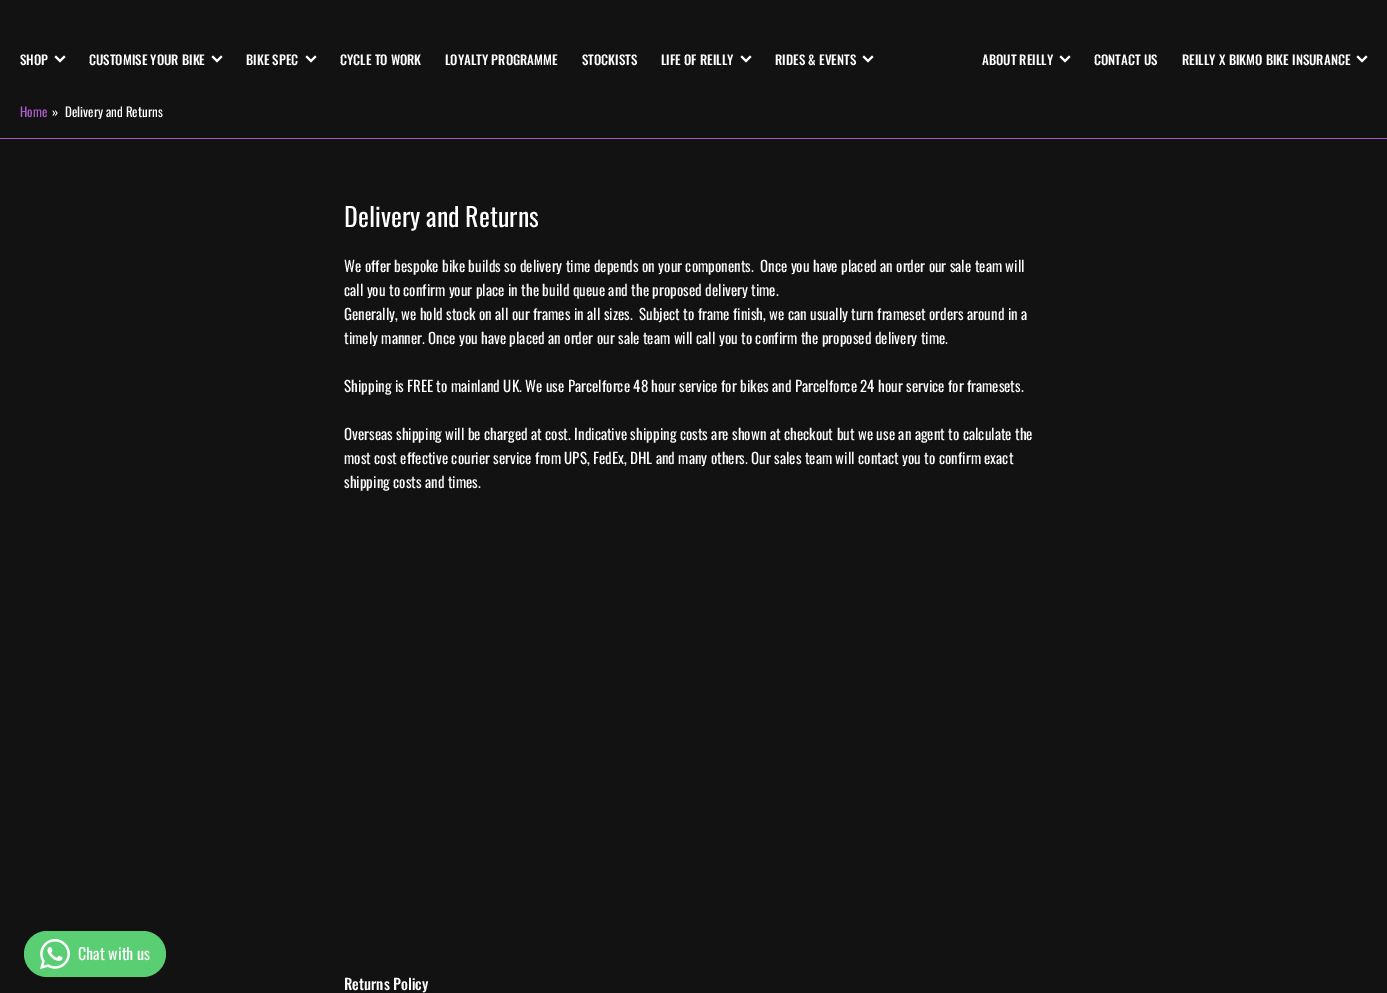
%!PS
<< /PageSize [1387 993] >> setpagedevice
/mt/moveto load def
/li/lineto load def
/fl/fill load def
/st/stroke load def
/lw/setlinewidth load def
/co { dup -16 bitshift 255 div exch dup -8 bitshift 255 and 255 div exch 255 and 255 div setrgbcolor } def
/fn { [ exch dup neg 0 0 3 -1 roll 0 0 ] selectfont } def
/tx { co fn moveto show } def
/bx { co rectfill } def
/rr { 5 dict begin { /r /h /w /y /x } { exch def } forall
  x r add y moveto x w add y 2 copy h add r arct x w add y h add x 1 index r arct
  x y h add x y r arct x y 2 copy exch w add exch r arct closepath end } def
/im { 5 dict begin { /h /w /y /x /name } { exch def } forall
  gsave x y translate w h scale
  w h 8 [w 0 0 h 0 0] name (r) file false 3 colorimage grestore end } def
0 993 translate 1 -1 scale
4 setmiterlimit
0 0 1387 993 16#121212 bx
16#FFFFFF co
2 lw
2 setlinecap
64 57 mt 60 61 li 56 57 li st
221 57 mt 217 61 li 213 57 li st
315 57 mt 311 61 li 307 57 li st
750 57 mt 746 61 li 742 57 li st
872 57 mt 868 61 li 864 57 li st
1069 57 mt 1065 61 li 1061 57 li st
1366 57 mt 1362 61 li 1358 57 li st
0 138 1387 1 16#AB5BC7 bx
16#59CE72 co
24 931 142 46 23 rr fl
(media/1.raw) 40 939 30 30 im
(SHOP) 20 65 /Oswald-Medium 13 16#FFFFFF tx
(CUSTOMISE YOUR BIKE) 89 65 /Oswald-Medium 13 16#FFFFFF tx
(BIKE SPEC) 246 65 /Oswald-Medium 13 16#FFFFFF tx
(CYCLE TO WORK) 340 65 /Oswald-Medium 13 16#FFFFFF tx
(LOYALTY PROGRAMME) 445 65 /Oswald-Medium 13 16#FFFFFF tx
(STOCKISTS) 582 65 /Oswald-Medium 13 16#FFFFFF tx
(LIFE OF REILLY) 661 65 /Oswald-Medium 13 16#FFFFFF tx
(RIDES & EVENTS) 775 65 /Oswald-Medium 13 16#FFFFFF tx
(ABOUT REILLY) 982 65 /Oswald-Medium 13 16#FFFFFF tx
(CONTACT US) 1094 65 /Oswald-Medium 13 16#FFFFFF tx
(REILLY X BIKMO BIKE INSURANCE) 1182 65 /Oswald-Medium 13 16#FFFFFF tx
(Home) 20 117 /Oswald-Regular 13 16#AB5BC7 tx
(») 52 117 /Oswald-Regular 13 16#FFFFFF tx
(Delivery and Returns) 65 117 /Oswald-Regular 13 16#FFFFFF tx
(Delivery and Returns) 344 227 /Oswald-Regular 26 16#FFFFFF tx
(We offer bespoke bike builds so delivery time depends on your components.) 344 272 /Oswald-Regular 15 16#FFFFFF tx
(Once you have placed an order our sale team will) 760 272 /Oswald-Regular 15 16#FFFFFF tx
(call you to confirm your place in the build queue and the proposed delivery time.) 344 296 /Oswald-Regular 15 16#FFFFFF tx
(Generally, we hold stock on all our frames in all sizes.) 344 320 /Oswald-Regular 15 16#FFFFFF tx
(Subject to frame finish, we can usually turn frameset orders around in a) 639 320 /Oswald-Regular 15 16#FFFFFF tx
(timely manner. Once you have placed an order our sale team will call you to confirm the proposed delivery time.) 344 344 /Oswald-Regular 15 16#FFFFFF tx
(Shipping is FREE to mainland UK. We use Parcelforce 48 hour service for bikes and Parcelforce 24 hour service for framesets.) 344 392 /Oswald-Regular 15 16#FFFFFF tx
(Overseas shipping will be charged at cost. Indicative shipping costs are shown at checkout but we use an agent to calculate the) 344 440 /Oswald-Regular 15 16#FFFFFF tx
(most cost effective courier service from UPS, FedEx, DHL and many others. Our sales team will contact you to confirm exact) 344 464 /Oswald-Regular 15 16#FFFFFF tx
(shipping costs and times.) 344 488 /Oswald-Regular 15 16#FFFFFF tx
(Returns Policy) 344 990 /Oswald-Medium 15 16#FFFFFF tx
(Chat with us) 78 960 /Oswald-Regular 16 16#FFFFFF tx
showpage
